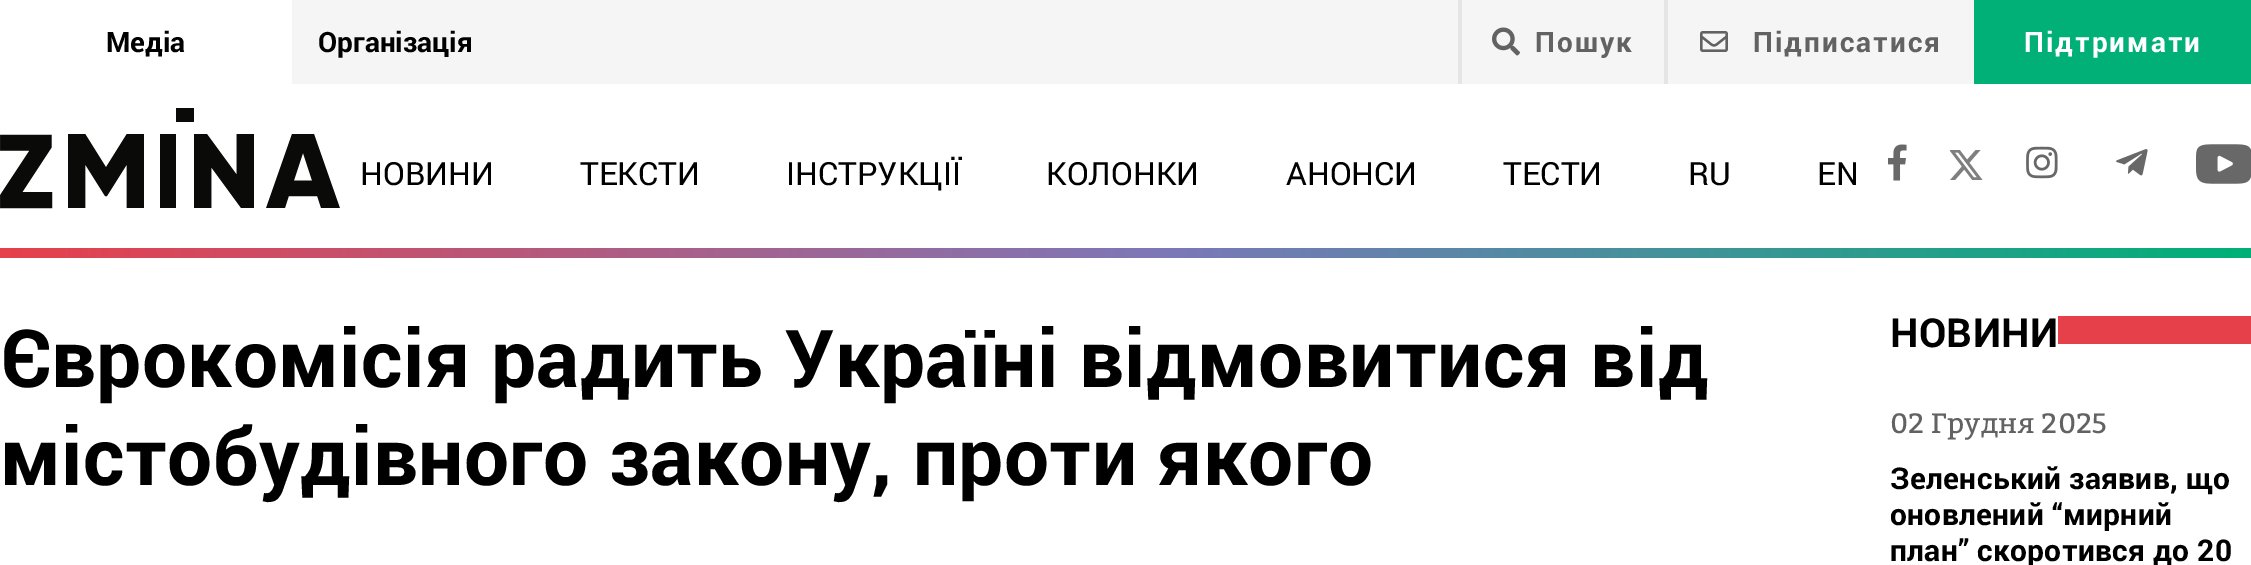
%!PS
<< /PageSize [2251 565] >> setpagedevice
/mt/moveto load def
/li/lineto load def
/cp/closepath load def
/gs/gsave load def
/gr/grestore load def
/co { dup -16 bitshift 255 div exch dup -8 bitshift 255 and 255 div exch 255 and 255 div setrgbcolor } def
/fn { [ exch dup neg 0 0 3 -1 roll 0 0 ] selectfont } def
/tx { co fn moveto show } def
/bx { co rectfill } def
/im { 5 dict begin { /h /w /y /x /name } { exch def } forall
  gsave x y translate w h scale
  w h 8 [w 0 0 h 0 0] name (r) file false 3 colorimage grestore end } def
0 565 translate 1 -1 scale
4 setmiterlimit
0 0 2251 565 16#FFFFFF bx
292 0 1682 84 16#F5F5F5 bx
1664 0 4 84 16#E5E5E5 bx
1458 0 4 84 16#E5E5E5 bx
(media/1.raw) 1492 27 28 29 im
(media/2.raw) 1700 31 28 21 im
1974 0 277 84 16#00B077 bx
(media/3.raw) 0 108 340 101 im
(media/4.raw) 1888 144 19 37 im
(media/5.raw) 1950 150 33 30 im
(media/6.raw) 2026 146 32 33 im
(media/7.raw) 2116 149 32 27 im
(media/8.raw) 2196 144 55 40 im
gs 0 248 mt 2251 248 li 2251 258 li 0 258 li cp clip newpath
<< /ShadingType 2 /ColorSpace /DeviceRGB /Coords [0 253 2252 253] /Extend [true true] /Function << /FunctionType 3 /Domain [0 1] /Functions [<< /FunctionType 2 /Domain [0 1] /C0 [.902 .251 .294] /C1 [.486 .471 .722] /N 1 >> << /FunctionType 2 /Domain [0 1] /C0 [.486 .471 .722] /C1 [0 .69 .467] /N 1 >>] /Bounds [.52] /Encode [0 1 0 1] >> >> shfill gr
2058 316 193 28 16#E6404B bx
(Медіа) 106 52 /Roboto-Bold 28 16#000000 tx
(Організація) 318 52 /Roboto-Bold 28 16#000000 tx
16#626262 co
1535 52 mt 2 0 (Пошук) ashow
1753 52 mt 2 0 (Підписатися) ashow
16#FFFFFF co
2024 52 mt 2 0 (Підтримати) ashow
(НОВИНИ) 360 185 /Roboto-Regular 32 16#000000 tx
(ТЕКСТИ) 580 185 /Roboto-Regular 32 16#000000 tx
(ІНСТРУКЦІЇ) 786 185 /Roboto-Regular 32 16#000000 tx
(КОЛОНКИ) 1046 185 /Roboto-Regular 32 16#000000 tx
(АНОНСИ) 1286 185 /Roboto-Regular 32 16#000000 tx
(ТЕСТИ) 1503 185 /Roboto-Regular 32 16#000000 tx
(RU) 1688 185 /Roboto-Regular 32 16#000000 tx
(EN) 1817 185 /Roboto-Regular 32 16#000000 tx
/Roboto-Bold 80 fn
0 387 mt .4 0 (Єврокомісія радить Україні відмовитися від) ashow
0 485 mt .4 0 (містобудівного закону, проти якого) ashow
/Roboto-Bold 40 fn
1890 347 mt .4 0 (НОВИНИ) ashow
/Bitter-Regular 28 fn
16#626262 co
1890 433 mt .25 0 (02 Грудня 2025) ashow
/Roboto-Bold 30 fn
16#000000 co
1890 489 mt .3 0 (Зеленський заявив, що) ashow
1890 525 mt .3 0 (оновлений “мирний) ashow
1890 561 mt .3 0 (план” скоротився до 20) ashow
showpage
